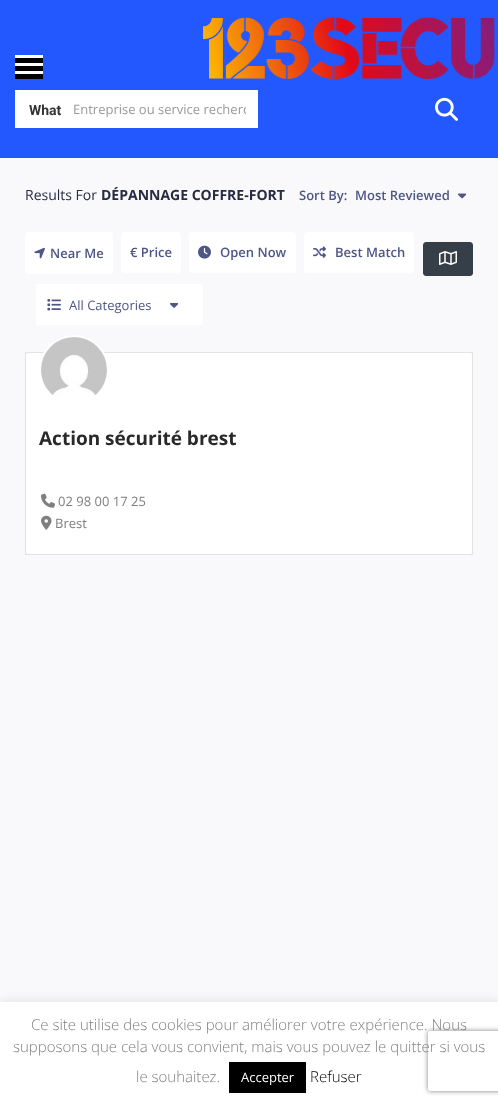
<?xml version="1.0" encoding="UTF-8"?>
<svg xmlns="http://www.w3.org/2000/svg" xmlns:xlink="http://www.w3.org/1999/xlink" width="498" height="1105">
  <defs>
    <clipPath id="clip1"><path d="M 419 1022 h 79 v 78 h -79 z m 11 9 h 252 c 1 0 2 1 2 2 v 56 c 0 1 -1 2 -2 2 h -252 c -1 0 -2 -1 -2 -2 v -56 c 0 -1 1 -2 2 -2 z" clip-rule="evenodd" /></clipPath>
    <clipPath id="clip2"><rect x="73" y="100" width="173" height="18" /></clipPath>
  </defs>
  <rect width="100%" height="100%" fill="#f9f9fb" />
  <rect width="498" height="158" fill="#2458ff" />
  <image x="203" y="17" width="292" height="62" xlink:href="image1.png" />
  <rect x="15" y="58" width="28" height="21" fill="#000000" />
  <rect x="15" y="55" width="28" height="3" fill="#ffffff" />
  <rect x="15" y="63" width="28" height="3" fill="#ffffff" />
  <rect x="15" y="71" width="28" height="3" fill="#ffffff" />
  <rect x="15" y="90" width="243" height="38" fill="#ffffff" />
  <image x="435" y="97" width="23" height="24" xlink:href="image2.png" />
  <image x="458" y="193" width="9" height="6" xlink:href="image3.png" />
  <rect x="25" y="232" width="88" height="42" rx="4" fill="#ffffff" />
  <image x="34" y="247" width="11" height="12" xlink:href="image4.png" />
  <rect x="121" y="232" width="60" height="41" rx="4" fill="#ffffff" />
  <rect x="189" y="232" width="107" height="41" rx="4" fill="#ffffff" />
  <image x="198" y="245" width="13" height="14" xlink:href="image5.png" />
  <rect x="304" y="232" width="110" height="41" rx="4" fill="#ffffff" />
  <image x="313" y="246" width="13" height="12" xlink:href="image6.png" />
  <rect x="36" y="284" width="167" height="41" rx="2" fill="#ffffff" />
  <image x="47" y="299" width="14" height="12" xlink:href="image7.png" />
  <image x="170" y="303" width="9" height="5" xlink:href="image8.png" />
  <rect x="423.5" y="242.5" width="49" height="33" rx="2.5" fill="#363f48" stroke="#363f48" />
  <image x="439" y="251" width="18" height="14" xlink:href="image9.png" />
  <rect x="25" y="352" width="448" height="203" rx="7" fill="#ffffff" />
  <rect x="25.5" y="352.5" width="447" height="202" fill="none" stroke="#e3e3e3" />
  <circle cx="74" cy="370" r="34" fill="none" stroke="#ffffff" stroke-width="2" />
  <image x="41" y="337" width="66" height="61" xlink:href="image10.png" />
  <image x="41" y="493" width="14" height="15" xlink:href="image11.png" />
  <image x="41" y="515" width="11" height="15" xlink:href="image12.png" />
  <rect y="1001" width="498" height="103" fill="#acabab" fill-opacity="0.3" filter="blur(5px)" />
  <rect y="1002" width="498" height="103" fill="#ffffff" />
  <rect x="229" y="1062" width="77" height="31" fill="#000000" />
  <g clip-path="url(#clip1)">
    <rect x="428" y="1031" width="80" height="60" rx="2" fill="#808080" filter="blur(2.5px)" />
  </g>
  <text x="29" y="115" style="font-family: Roboto; font-size: 14px; font-weight: bold; fill: #333333">What</text>
  <g clip-path="url(#clip2)">
    <text x="73" y="114" style="font-family: Open Sans; font-size: 13px; fill: #999999">Entreprise ou service recherc</text>
  </g>
  <text x="25" y="200" style="font-family: Open Sans; font-size: 14px; fill: #282b42">Results For</text>
  <text x="101" y="200" style="font-family: Open Sans; font-size: 14px; font-weight: bold; fill: #282b42">DÉPANNAGE COFFRE-FORT</text>
  <text x="299" y="200" style="font-family: Open Sans; font-size: 13px; font-weight: 600; fill: #4f5685">Sort By:</text>
  <text x="355" y="200" style="font-family: Open Sans; font-size: 13px; font-weight: 600; fill: #4f5685">Most Reviewed</text>
  <text x="50" y="258" style="font-family: Open Sans; font-size: 13px; font-weight: 600; fill: #4f5685">Near Me</text>
  <text x="130" y="257" style="font-family: Open Sans; font-size: 13px; font-weight: 600; fill: #4f5685">€ Price</text>
  <text x="220" y="257" style="font-family: Open Sans; font-size: 13px; font-weight: 600; fill: #4f5685">Open Now</text>
  <text x="335" y="257" style="font-family: Open Sans; font-size: 13px; font-weight: 600; fill: #4f5685">Best Match</text>
  <text x="69" y="310" style="font-family: Open Sans; font-size: 13px; fill: #4f5685">All Categories</text>
  <text x="39" y="445" style="font-family: Open Sans; font-size: 19px; font-weight: bold; fill: #292929">Action sécurité brest</text>
  <text x="58" y="506" style="font-family: Open Sans; font-size: 13px; fill: #7f7f7f">02 98 00 17 25</text>
  <text x="55" y="528" style="font-family: Open Sans; font-size: 13px; fill: #7f7f7f">Brest</text>
  <text x="31" y="1030" style="font-family: Open Sans; font-size: 15px; font-weight: 300; fill: #7f7f7f">Ce site utilise des cookies pour améliorer votre expérience. Nous</text>
  <text x="13" y="1052" style="font-family: Open Sans; font-size: 15px; font-weight: 300; fill: #7f7f7f">supposons que cela vous convient, mais vous pouvez le quitter si vous</text>
  <text x="136" y="1082" style="font-family: Open Sans; font-size: 15px; font-weight: 300; fill: #7f7f7f">le souhaitez.</text>
  <text x="241" y="1082" style="font-family: Open Sans; font-size: 13px; fill: #ffffff">Accepter</text>
  <text x="310" y="1082" style="font-family: Open Sans; font-size: 15px; font-weight: 300; fill: #000000">Refuser</text>
</svg>
